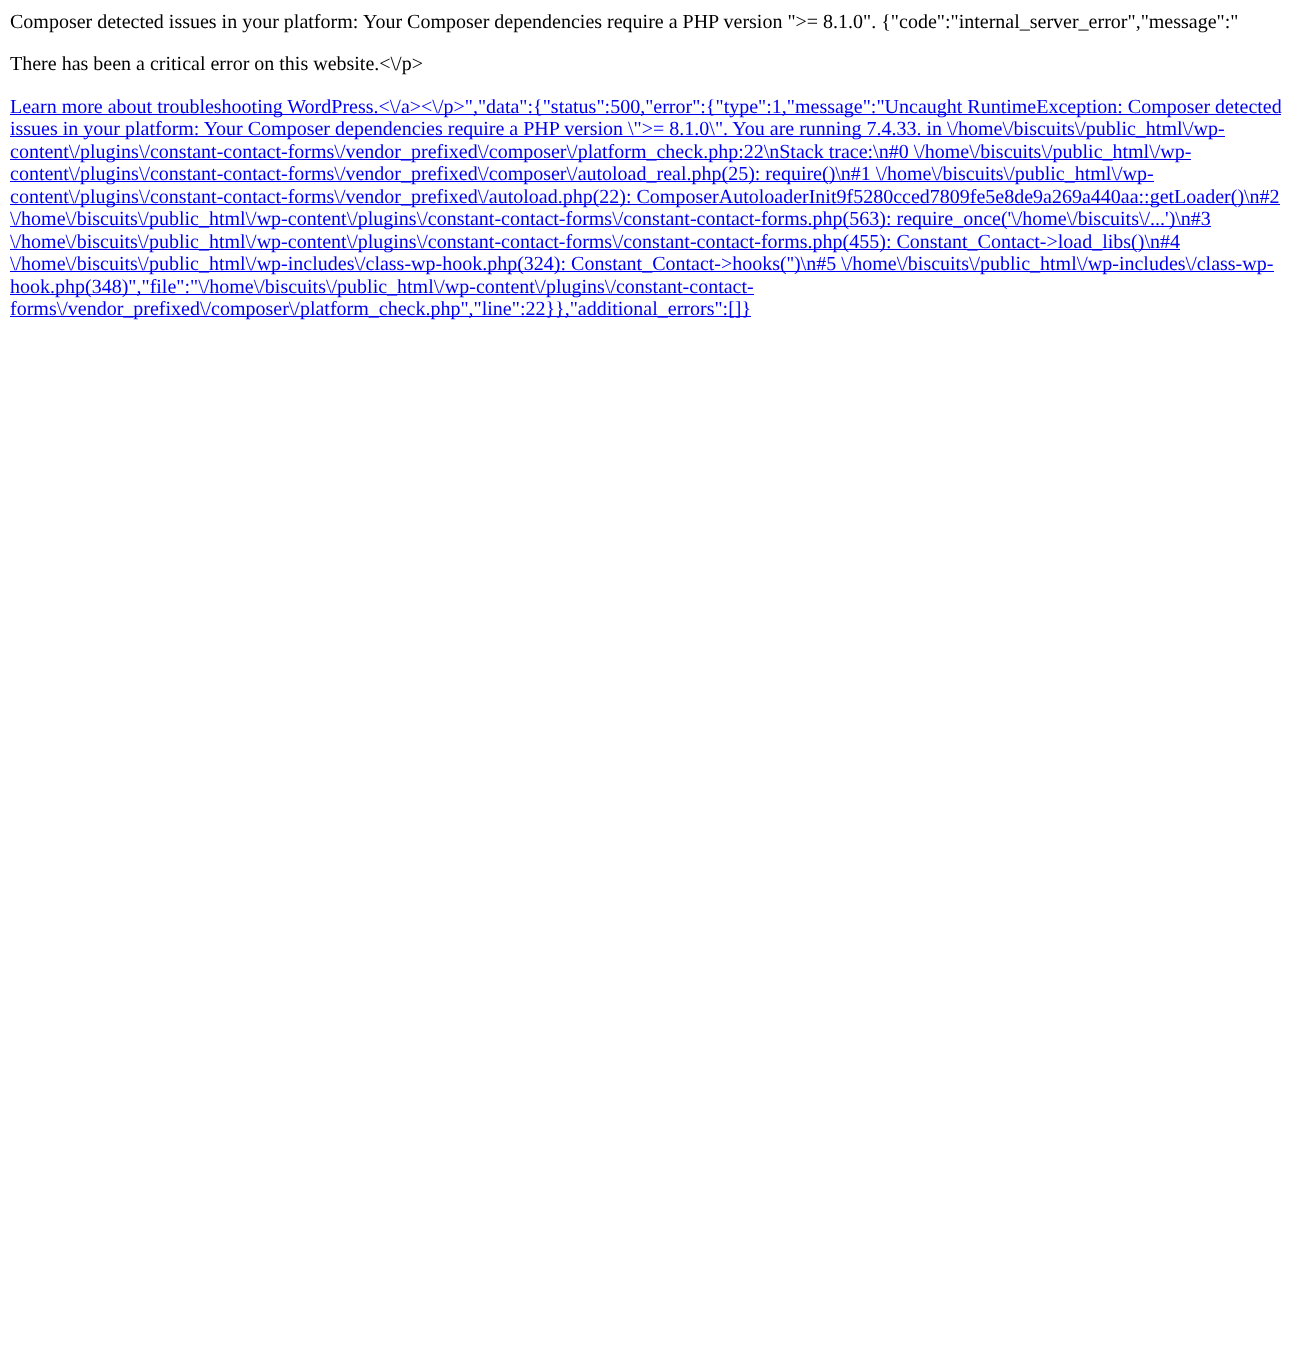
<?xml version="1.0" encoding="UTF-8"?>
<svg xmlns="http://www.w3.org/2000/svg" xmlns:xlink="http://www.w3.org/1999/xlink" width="1304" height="1350">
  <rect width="100%" height="100%" fill="#ffffff" />
  <rect x="10" y="114" width="1271" height="1" fill="#0000ee" />
  <rect x="10" y="136" width="1215" height="1" fill="#0000ee" />
  <rect x="10" y="159" width="1181" height="1" fill="#0000ee" />
  <rect x="10" y="181" width="1144" height="1" fill="#0000ee" />
  <rect x="10" y="204" width="1270" height="1" fill="#0000ee" />
  <rect x="10" y="226" width="1201" height="1" fill="#0000ee" />
  <rect x="10" y="249" width="1170" height="1" fill="#0000ee" />
  <rect x="10" y="271" width="1264" height="1" fill="#0000ee" />
  <rect x="10" y="294" width="744" height="1" fill="#0000ee" />
  <rect x="10" y="316" width="741" height="1" fill="#0000ee" />
  <text x="10" y="28" style="font-family: Liberation Serif; font-size: 20px; fill: #000000">Composer detected issues in your platform:</text>
  <text x="363" y="28" style="font-family: Liberation Serif; font-size: 20px; fill: #000000">Your Composer dependencies require a PHP version "&gt;= 8.1.0". {"code":"internal_server_error","message":"</text>
  <text x="10" y="70" style="font-family: Liberation Serif; font-size: 20px; fill: #000000">There has been a critical error on this website.&lt;\/p&gt;</text>
  <text x="10" y="113" style="font-family: Liberation Serif; font-size: 20px; fill: #0000ee">Learn more about troubleshooting WordPress.&lt;\/a&gt;&lt;\/p&gt;","data":{"status":500,"error":{"type":1,"message":"Uncaught RuntimeException: Composer detected</text>
  <text x="10" y="135" style="font-family: Liberation Serif; font-size: 20px; fill: #0000ee">issues in your platform: Your Composer dependencies require a PHP version \"&gt;= 8.1.0\". You are running 7.4.33. in \/home\/biscuits\/public_html\/wp-</text>
  <text x="10" y="158" style="font-family: Liberation Serif; font-size: 20px; fill: #0000ee">content\/plugins\/constant-contact-forms\/vendor_prefixed\/composer\/platform_check.php:22\nStack trace:\n#0 \/home\/biscuits\/public_html\/wp-</text>
  <text x="10" y="180" style="font-family: Liberation Serif; font-size: 20px; fill: #0000ee">content\/plugins\/constant-contact-forms\/vendor_prefixed\/composer\/autoload_real.php(25): require()\n#1 \/home\/biscuits\/public_html\/wp-</text>
  <text x="10" y="203" style="font-family: Liberation Serif; font-size: 20px; fill: #0000ee">content\/plugins\/constant-contact-forms\/vendor_prefixed\/autoload.php(22): ComposerAutoloaderInit9f5280cced7809fe5e8de9a269a440aa::getLoader()\n#2</text>
  <text x="10" y="225" style="font-family: Liberation Serif; font-size: 20px; fill: #0000ee">\/home\/biscuits\/public_html\/wp-content\/plugins\/constant-contact-forms\/constant-contact-forms.php(563): require_once('\/home\/biscuits\/...')\n#3</text>
  <text x="10" y="248" style="font-family: Liberation Serif; font-size: 20px; fill: #0000ee">\/home\/biscuits\/public_html\/wp-content\/plugins\/constant-contact-forms\/constant-contact-forms.php(455): Constant_Contact-&gt;load_libs()\n#4</text>
  <text x="10" y="270" style="font-family: Liberation Serif; font-size: 20px; fill: #0000ee">\/home\/biscuits\/public_html\/wp-includes\/class-wp-hook.php(324): Constant_Contact-&gt;hooks('')\n#5 \/home\/biscuits\/public_html\/wp-includes\/class-wp-</text>
  <text x="10" y="293" style="font-family: Liberation Serif; font-size: 20px; fill: #0000ee">hook.php(348)","file":"\/home\/biscuits\/public_html\/wp-content\/plugins\/constant-contact-</text>
  <text x="10" y="315" style="font-family: Liberation Serif; font-size: 20px; fill: #0000ee">forms\/vendor_prefixed\/composer\/platform_check.php","line":22}},"additional_errors":[]}</text>
</svg>
